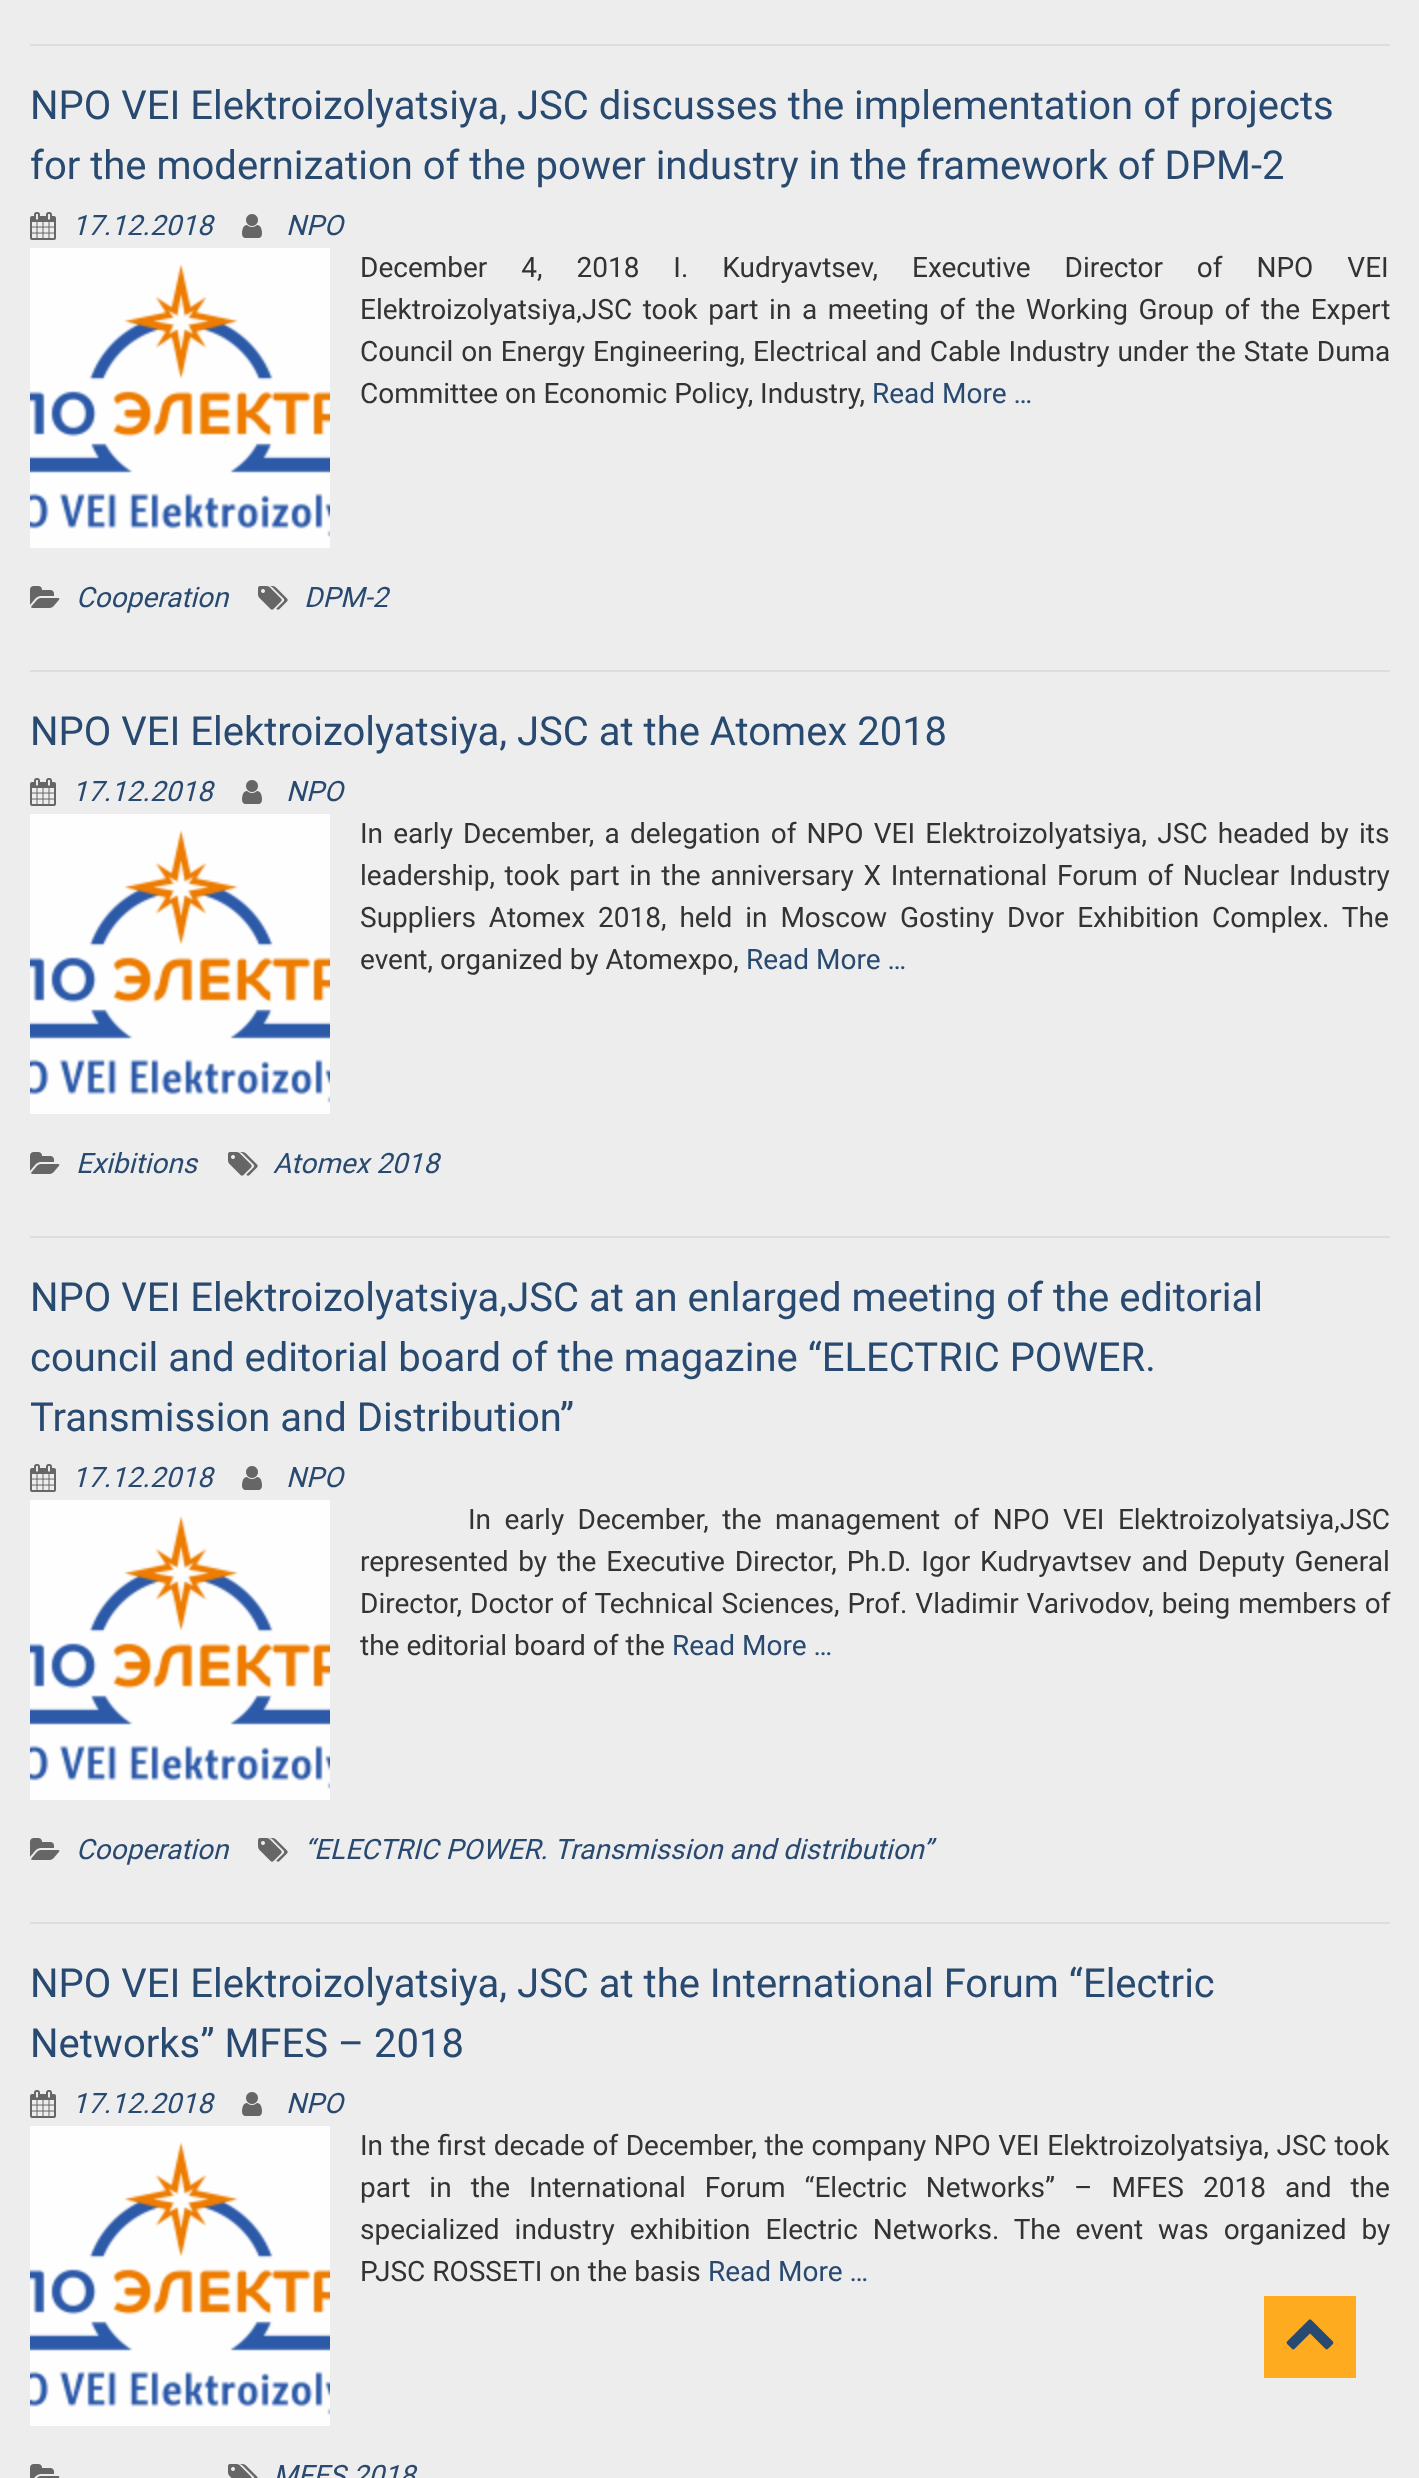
<?xml version="1.0" encoding="UTF-8"?>
<svg xmlns="http://www.w3.org/2000/svg" xmlns:xlink="http://www.w3.org/1999/xlink" width="1419" height="2478">
  <rect width="100%" height="100%" fill="#ededed" />
  <rect x="30" y="44" width="1360" height="2" fill="#dddddd" />
  <rect x="30" y="670" width="1360" height="2" fill="#dddddd" />
  <image x="30" y="212" width="26" height="28" xlink:href="image1.png" />
  <image x="242" y="214" width="20" height="24" xlink:href="image2.png" />
  <image x="30" y="248" width="300" height="300" xlink:href="image3.png" />
  <image x="30" y="586" width="30" height="22" xlink:href="image4.png" />
  <image x="258" y="586" width="30" height="24" xlink:href="image5.png" />
  <rect x="30" y="1236" width="1360" height="2" fill="#dddddd" />
  <image x="30" y="778" width="26" height="28" xlink:href="image1.png" />
  <image x="242" y="780" width="20" height="24" xlink:href="image2.png" />
  <image x="30" y="814" width="300" height="300" xlink:href="image3.png" />
  <image x="30" y="1152" width="30" height="22" xlink:href="image4.png" />
  <image x="228" y="1152" width="30" height="24" xlink:href="image5.png" />
  <rect x="30" y="1922" width="1360" height="2" fill="#dddddd" />
  <image x="30" y="1464" width="26" height="28" xlink:href="image1.png" />
  <image x="242" y="1466" width="20" height="24" xlink:href="image2.png" />
  <image x="30" y="1500" width="300" height="300" xlink:href="image3.png" />
  <image x="30" y="1838" width="30" height="22" xlink:href="image4.png" />
  <image x="258" y="1838" width="30" height="24" xlink:href="image5.png" />
  <image x="30" y="2090" width="26" height="28" xlink:href="image1.png" />
  <image x="242" y="2092" width="20" height="24" xlink:href="image2.png" />
  <image x="30" y="2126" width="300" height="300" xlink:href="image3.png" />
  <image x="30" y="2464" width="30" height="14" xlink:href="image6.png" />
  <image x="228" y="2464" width="30" height="14" xlink:href="image7.png" />
  <rect x="1264" y="2296" width="92" height="82" fill="#ffab1f" />
  <image x="1286" y="2319" width="48" height="31" xlink:href="image8.png" />
  <text x="30" y="119" style="font-family: Roboto; font-size: 40px; fill: #294a70">NPO VEI Elektroizolyatsiya, JSC discusses the implementation of projects</text>
  <text x="30" y="179" style="font-family: Roboto; font-size: 40px; fill: #294a70">for the modernization of the power industry in the framework of DPM-2</text>
  <text x="72" y="235" style="font-family: Roboto; font-size: 28px; font-style: italic; fill: #294a70">17.12.2018</text>
  <text x="286" y="235" style="font-family: Roboto; font-size: 28px; font-style: italic; fill: #294a70">NPO</text>
  <text x="360" y="277" word-spacing="27" style="font-family: Roboto; font-size: 28px; fill: #333333">December 4, 2018 I. Kudryavtsev, Executive Director of NPO VEI</text>
  <text x="360" y="319" word-spacing="3.6" style="font-family: Roboto; font-size: 28px; fill: #333333">Elektroizolyatsiya,JSC took part in a meeting of the Working Group of the Expert</text>
  <text x="360" y="361" word-spacing="1" style="font-family: Roboto; font-size: 28px; fill: #333333">Council on Energy Engineering, Electrical and Cable Industry under the State Duma</text>
  <text x="360" y="403" style="font-family: Roboto; font-size: 28px; fill: #333333">Committee on Economic Policy, Industry,</text>
  <text x="872" y="403" style="font-family: Roboto; font-size: 28px; fill: #294a70">Read More …</text>
  <text x="76" y="607" style="font-family: Roboto; font-size: 28px; font-style: italic; fill: #294a70">Cooperation</text>
  <text x="304" y="607" style="font-family: Roboto; font-size: 28px; font-style: italic; fill: #294a70">DPM-2</text>
  <text x="30" y="745" style="font-family: Roboto; font-size: 40px; fill: #294a70">NPO VEI Elektroizolyatsiya, JSC at the Atomex 2018</text>
  <text x="72" y="801" style="font-family: Roboto; font-size: 28px; font-style: italic; fill: #294a70">17.12.2018</text>
  <text x="286" y="801" style="font-family: Roboto; font-size: 28px; font-style: italic; fill: #294a70">NPO</text>
  <text x="360" y="843" word-spacing="3.25" style="font-family: Roboto; font-size: 28px; fill: #333333">In early December, a delegation of NPO VEI Elektroizolyatsiya, JSC headed by its</text>
  <text x="360" y="885" word-spacing="2.75" style="font-family: Roboto; font-size: 28px; fill: #333333">leadership, took part in the anniversary X International Forum of Nuclear Industry</text>
  <text x="360" y="927" word-spacing="6" style="font-family: Roboto; font-size: 28px; fill: #333333">Suppliers Atomex 2018, held in Moscow Gostiny Dvor Exhibition Complex. The</text>
  <text x="360" y="969" style="font-family: Roboto; font-size: 28px; fill: #333333">event, organized by Atomexpo,</text>
  <text x="746" y="969" style="font-family: Roboto; font-size: 28px; fill: #294a70">Read More …</text>
  <text x="76" y="1173" style="font-family: Roboto; font-size: 28px; font-style: italic; fill: #294a70">Exibitions</text>
  <text x="273" y="1173" style="font-family: Roboto; font-size: 28px; font-style: italic; fill: #294a70">Atomex 2018</text>
  <text x="30" y="1311" style="font-family: Roboto; font-size: 40px; fill: #294a70">NPO VEI Elektroizolyatsiya,JSC at an enlarged meeting of the editorial</text>
  <text x="30" y="1371" style="font-family: Roboto; font-size: 40px; fill: #294a70">council and editorial board of the magazine “ELECTRIC POWER.</text>
  <text x="30" y="1431" style="font-family: Roboto; font-size: 40px; fill: #294a70">Transmission and Distribution”</text>
  <text x="72" y="1487" style="font-family: Roboto; font-size: 28px; font-style: italic; fill: #294a70">17.12.2018</text>
  <text x="286" y="1487" style="font-family: Roboto; font-size: 28px; font-style: italic; fill: #294a70">NPO</text>
  <text x="468" y="1529" word-spacing="6.5" style="font-family: Roboto; font-size: 28px; fill: #333333">In early December, the management of NPO VEI Elektroizolyatsiya,JSC</text>
  <text x="360" y="1571" word-spacing="2.9" style="font-family: Roboto; font-size: 28px; fill: #333333">represented by the Executive Director, Ph.D. Igor Kudryavtsev and Deputy General</text>
  <text x="360" y="1613" word-spacing="1" style="font-family: Roboto; font-size: 28px; fill: #333333">Director, Doctor of Technical Sciences, Prof. Vladimir Varivodov, being members of</text>
  <text x="360" y="1655" style="font-family: Roboto; font-size: 28px; fill: #333333">the editorial board of the</text>
  <text x="672" y="1655" style="font-family: Roboto; font-size: 28px; fill: #294a70">Read More …</text>
  <text x="76" y="1859" style="font-family: Roboto; font-size: 28px; font-style: italic; fill: #294a70">Cooperation</text>
  <text x="304" y="1859" style="font-family: Roboto; font-size: 28px; font-style: italic; fill: #294a70">“ELECTRIC POWER. Transmission and distribution”</text>
  <text x="30" y="1997" style="font-family: Roboto; font-size: 40px; fill: #294a70">NPO VEI Elektroizolyatsiya, JSC at the International Forum “Electric</text>
  <text x="30" y="2057" style="font-family: Roboto; font-size: 40px; fill: #294a70">Networks” MFES – 2018</text>
  <text x="72" y="2113" style="font-family: Roboto; font-size: 28px; font-style: italic; fill: #294a70">17.12.2018</text>
  <text x="286" y="2113" style="font-family: Roboto; font-size: 28px; font-style: italic; fill: #294a70">NPO</text>
  <text x="360" y="2155" word-spacing="0.6" style="font-family: Roboto; font-size: 28px; fill: #333333">In the first decade of December, the company NPO VEI Elektroizolyatsiya, JSC took</text>
  <text x="360" y="2197" word-spacing="12.1" style="font-family: Roboto; font-size: 28px; fill: #333333">part in the International Forum “Electric Networks” – MFES 2018 and the</text>
  <text x="360" y="2239" word-spacing="8" style="font-family: Roboto; font-size: 28px; fill: #333333">specialized industry exhibition Electric Networks. The event was organized by</text>
  <text x="360" y="2281" style="font-family: Roboto; font-size: 28px; fill: #333333">PJSC ROSSETI on the basis</text>
  <text x="708" y="2281" style="font-family: Roboto; font-size: 28px; fill: #294a70">Read More …</text>
  <text x="273" y="2485" style="font-family: Roboto; font-size: 28px; font-style: italic; fill: #294a70">MFES 2018</text>
</svg>
